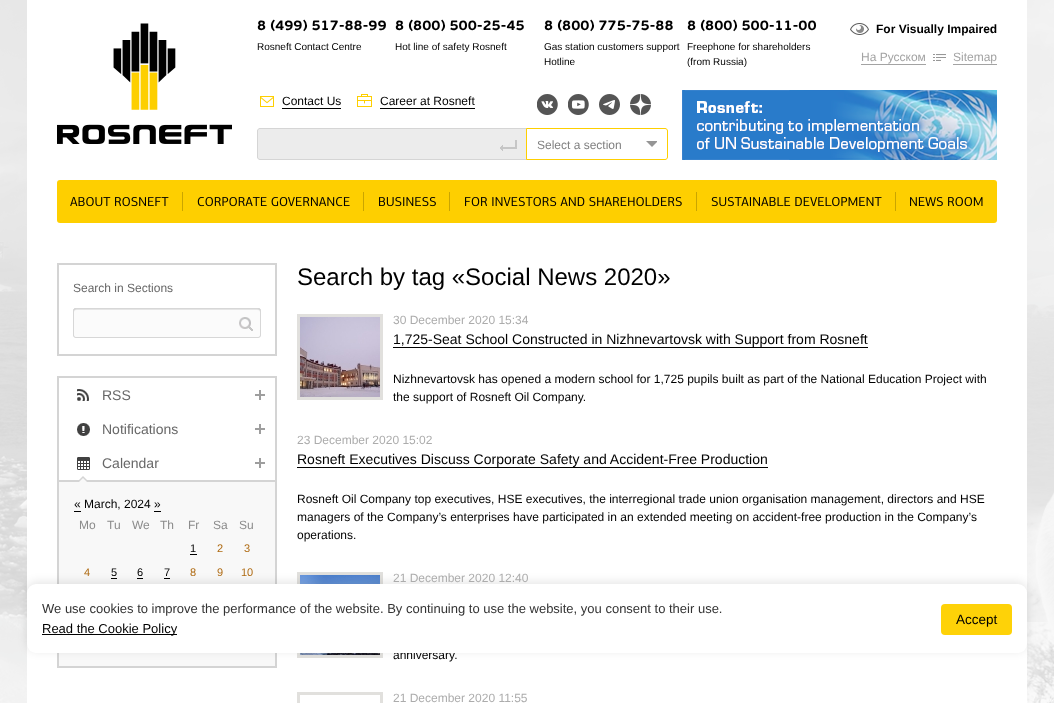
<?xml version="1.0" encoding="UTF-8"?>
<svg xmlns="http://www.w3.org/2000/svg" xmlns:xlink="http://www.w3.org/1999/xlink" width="1054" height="703">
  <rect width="100%" height="100%" fill="#ffffff" />
  <image x="0" y="0" width="1054" height="703" xlink:href="image1.png" />
  <rect x="27" width="1000" height="703" fill="#ffffff" />
  <image x="57" y="23" width="175" height="121" xlink:href="image2.png" />
  <image x="850" y="23" width="19" height="12" xlink:href="image3.png" />
  <rect x="861" y="64" width="65" height="1" fill="#a3a3a3" />
  <image x="933" y="54" width="13" height="7" xlink:href="image4.png" />
  <rect x="953" y="64" width="44" height="1" fill="#a3a3a3" />
  <image x="260" y="96" width="14" height="11" xlink:href="image5.png" />
  <rect x="282" y="108" width="59" height="1" fill="#000000" />
  <image x="357" y="94" width="15" height="13" xlink:href="image6.png" />
  <rect x="380" y="108" width="95" height="1" fill="#000000" />
  <image x="537" y="94" width="21" height="21" xlink:href="image7.png" />
  <image x="568" y="94" width="21" height="21" xlink:href="image8.png" />
  <image x="599" y="94" width="21" height="21" xlink:href="image9.png" />
  <image x="630" y="94" width="21" height="21" xlink:href="image10.png" />
  <image x="682" y="90" width="315" height="70" xlink:href="image11.png" />
  <path d="M 260 128.5 h 266.5 v 31 h -266.5 c -1.5 0 -2.5 -1 -2.5 -2.5 v -26 c 0 -1.5 1 -2.5 2.5 -2.5 z" fill="#ececec" stroke="#d5d5d5" />
  <image x="500" y="140" width="17" height="11" xlink:href="image12.png" />
  <path d="M 526.5 128.5 h 138.5 c 1.5 0 2.5 1 2.5 2.5 v 26 c 0 1.5 -1 2.5 -2.5 2.5 h -138.5 z" fill="#ffffff" stroke="#fecf00" />
  <image x="646" y="141" width="11" height="6" xlink:href="image13.png" />
  <rect x="57" y="180" width="940" height="43" rx="3" fill="#fecf00" />
  <image x="70" y="197" width="99" height="10" xlink:href="image14.png" />
  <rect x="182" y="192" width="1" height="19" fill="#caa500" />
  <image x="197" y="197" width="153" height="10" xlink:href="image15.png" />
  <rect x="363" y="192" width="1" height="19" fill="#caa500" />
  <image x="379" y="197" width="57" height="10" xlink:href="image16.png" />
  <rect x="449" y="192" width="1" height="19" fill="#caa500" />
  <image x="465" y="197" width="217" height="10" xlink:href="image17.png" />
  <rect x="696" y="192" width="1" height="19" fill="#caa500" />
  <image x="711" y="197" width="171" height="10" xlink:href="image18.png" />
  <rect x="895" y="192" width="1" height="19" fill="#caa500" />
  <image x="910" y="197" width="73" height="10" xlink:href="image19.png" />
  <rect x="58" y="264" width="218" height="91" fill="none" stroke="#d4d4d4" stroke-width="2" />
  <image x="73" y="308" width="188" height="30" xlink:href="image20.png" />
  <image x="239" y="317" width="14" height="14" xlink:href="image21.png" />
  <rect x="58" y="377" width="218" height="290" fill="none" stroke="#d4d4d4" stroke-width="2" />
  <image x="77" y="389" width="12" height="12" xlink:href="image22.png" />
  <image x="255" y="390" width="10" height="10" xlink:href="image23.png" />
  <image x="77" y="423" width="13" height="13" xlink:href="image24.png" />
  <image x="255" y="424" width="10" height="10" xlink:href="image23.png" />
  <image x="77" y="457" width="13" height="13" xlink:href="image25.png" />
  <image x="255" y="458" width="10" height="10" xlink:href="image23.png" />
  <rect x="58" y="481" width="218" height="186" fill="#f8f8f8" stroke="#d4d4d4" stroke-width="2" />
  <path d="M 89 482 h -12 l 6 -6 z" fill="#d4d4d4" />
  <path d="M 89 484 h -12 l 6 -6 z" fill="#f8f8f8" />
  <rect x="74" y="511" width="7" height="1" fill="#000000" />
  <rect x="154" y="511" width="7" height="1" fill="#000000" />
  <rect x="190" y="554" width="7" height="1" fill="#000000" />
  <rect x="111" y="578" width="6" height="1" fill="#000000" />
  <rect x="137" y="578" width="6" height="1" fill="#000000" />
  <rect x="164" y="578" width="6" height="1" fill="#000000" />
  <rect x="298.5" y="315.5" width="83" height="83" fill="none" stroke="#e1e0dd" stroke-width="3" />
  <image x="300" y="317" width="80" height="80" xlink:href="image26.png" />
  <rect x="393" y="347" width="475" height="1" fill="#000000" />
  <rect x="297" y="467" width="471" height="1" fill="#000000" />
  <rect x="298.5" y="573.5" width="83" height="83" fill="none" stroke="#e1e0dd" stroke-width="3" />
  <image x="300" y="575" width="80" height="80" xlink:href="image27.png" />
  <rect x="298.5" y="693.5" width="83" height="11" fill="none" stroke="#e1e0dd" stroke-width="3" />
  <rect x="27" y="582" width="1000" height="69" rx="9" fill="#000000" fill-opacity="0.1" filter="blur(5px)" />
  <text x="257" y="30" style="font-family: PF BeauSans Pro; font-size: 14px; font-weight: bold; fill: #000000">8 (499) 517-88-99</text>
  <text x="257" y="50" style="font-family: Liberation Sans; font-size: 10px; fill: #000000">Rosneft Contact Centre</text>
  <text x="395" y="30" style="font-family: PF BeauSans Pro; font-size: 14px; font-weight: bold; fill: #000000">8 (800) 500-25-45</text>
  <text x="395" y="50" style="font-family: Liberation Sans; font-size: 10px; fill: #000000">Hot line of safety Rosneft</text>
  <text x="544" y="30" style="font-family: PF BeauSans Pro; font-size: 14px; font-weight: bold; fill: #000000">8 (800) 775-75-88</text>
  <text x="544" y="50" style="font-family: Liberation Sans; font-size: 10px; fill: #000000">Gas station customers support</text>
  <text x="544" y="65" style="font-family: Liberation Sans; font-size: 10px; fill: #000000">Hotline</text>
  <text x="687" y="30" style="font-family: PF BeauSans Pro; font-size: 14px; font-weight: bold; fill: #000000">8 (800) 500-11-00</text>
  <text x="687" y="50" style="font-family: Liberation Sans; font-size: 10px; fill: #000000">Freephone for shareholders</text>
  <text x="687" y="65" style="font-family: Liberation Sans; font-size: 10px; fill: #000000">(from Russia)</text>
  <text x="876" y="33" style="font-family: Liberation Sans; font-size: 12px; font-weight: bold; fill: #000000">For Visually Impaired</text>
  <text x="861" y="61" style="font-family: Liberation Sans; font-size: 12px; fill: #a3a3a3">На Русском</text>
  <text x="953" y="61" style="font-family: Liberation Sans; font-size: 12px; fill: #a3a3a3">Sitemap</text>
  <text x="282" y="105" style="font-family: Liberation Sans; font-size: 12px; fill: #000000">Contact Us</text>
  <text x="380" y="105" style="font-family: Liberation Sans; font-size: 12px; fill: #000000">Career at Rosneft</text>
  <text x="537" y="149" style="font-family: Liberation Sans; font-size: 12px; fill: #808080">Select a section</text>
  <text x="73" y="292" style="font-family: Liberation Sans; font-size: 12px; fill: #676767">Search in Sections</text>
  <text x="102" y="400" style="font-family: Liberation Sans; font-size: 14px; fill: #676767">RSS</text>
  <text x="102" y="434" style="font-family: Liberation Sans; font-size: 14px; fill: #676767">Notifications</text>
  <text x="102" y="468" style="font-family: Liberation Sans; font-size: 14px; fill: #676767">Calendar</text>
  <text x="74" y="508" style="font-family: Liberation Sans; font-size: 12px; fill: #000000">« March, 2024 »</text>
  <text x="79" y="529" style="font-family: Liberation Sans; font-size: 12px; fill: #8b8b8b">Mo</text>
  <text x="107" y="529" style="font-family: Liberation Sans; font-size: 12px; fill: #8b8b8b">Tu</text>
  <text x="132" y="529" style="font-family: Liberation Sans; font-size: 12px; fill: #8b8b8b">We</text>
  <text x="160" y="529" style="font-family: Liberation Sans; font-size: 12px; fill: #8b8b8b">Th</text>
  <text x="188" y="529" style="font-family: Liberation Sans; font-size: 12px; fill: #8b8b8b">Fr</text>
  <text x="213" y="529" style="font-family: Liberation Sans; font-size: 12px; fill: #8b8b8b">Sa</text>
  <text x="239" y="529" style="font-family: Liberation Sans; font-size: 12px; fill: #8b8b8b">Su</text>
  <text x="190" y="552" style="font-family: Liberation Sans; font-size: 11px; fill: #000000">1</text>
  <text x="217" y="552" style="font-family: Liberation Sans; font-size: 11px; fill: #af6b13">2</text>
  <text x="244" y="552" style="font-family: Liberation Sans; font-size: 11px; fill: #af6b13">3</text>
  <text x="84" y="576" style="font-family: Liberation Sans; font-size: 11px; fill: #af6b13">4</text>
  <text x="111" y="576" style="font-family: Liberation Sans; font-size: 11px; fill: #000000">5</text>
  <text x="137" y="576" style="font-family: Liberation Sans; font-size: 11px; fill: #000000">6</text>
  <text x="164" y="576" style="font-family: Liberation Sans; font-size: 11px; fill: #000000">7</text>
  <text x="190" y="576" style="font-family: Liberation Sans; font-size: 11px; fill: #af6b13">8</text>
  <text x="217" y="576" style="font-family: Liberation Sans; font-size: 11px; fill: #af6b13">9</text>
  <text x="241" y="576" style="font-family: Liberation Sans; font-size: 11px; fill: #af6b13">10</text>
  <text x="297" y="285" style="font-family: Liberation Sans; font-size: 24px; fill: #000000">Search by tag «Social News 2020»</text>
  <text x="393" y="324" style="font-family: Liberation Sans; font-size: 12px; fill: #acacac">30 December 2020 15:34</text>
  <text x="393" y="344" style="font-family: Liberation Sans; font-size: 14px; fill: #000000">1,725-Seat School Constructed in Nizhnevartovsk with Support from Rosneft</text>
  <text x="393" y="383" style="font-family: Liberation Sans; font-size: 12px; fill: #000000">Nizhnevartovsk has opened a modern school for 1,725 pupils built as part of the National Education Project with</text>
  <text x="393" y="401" style="font-family: Liberation Sans; font-size: 12px; fill: #000000">the support of Rosneft Oil Company.</text>
  <text x="297" y="444" style="font-family: Liberation Sans; font-size: 12px; fill: #acacac">23 December 2020 15:02</text>
  <text x="297" y="464" style="font-family: Liberation Sans; font-size: 14px; fill: #000000">Rosneft Executives Discuss Corporate Safety and Accident-Free Production</text>
  <text x="297" y="503" style="font-family: Liberation Sans; font-size: 12px; fill: #000000">Rosneft Oil Company top executives, HSE executives, the interregional trade union organisation management, directors and HSE</text>
  <text x="297" y="521" style="font-family: Liberation Sans; font-size: 12px; fill: #000000">managers of the Company’s enterprises have participated in an extended meeting on accident-free production in the Company’s</text>
  <text x="297" y="539" style="font-family: Liberation Sans; font-size: 12px; fill: #000000">operations.</text>
  <text x="393" y="582" style="font-family: Liberation Sans; font-size: 12px; fill: #acacac">21 December 2020 12:40</text>
  <text x="393" y="659" style="font-family: Liberation Sans; font-size: 12px; fill: #000000">anniversary.</text>
  <text x="393" y="702" style="font-family: Liberation Sans; font-size: 12px; fill: #acacac">21 December 2020 11:55</text>
  <rect x="27" y="584" width="1000" height="69" rx="9" fill="#ffffff" />
  <text x="42" y="613" style="font-family: Liberation Sans; font-size: 13px; fill: #333333">We use cookies to improve the performance of the website. By continuing to use the website, you consent to their use.</text>
  <rect x="42" y="634" width="135" height="1" fill="#000000" />
  <text x="42" y="633" style="font-family: Liberation Sans; font-size: 13px; fill: #000000">Read the Cookie Policy</text>
  <rect x="941" y="604" width="71" height="31" rx="4" fill="#fed208" />
  <text x="956" y="624" style="font-family: Liberation Sans; font-size: 13.5px; fill: #000000">Accept</text>
</svg>
